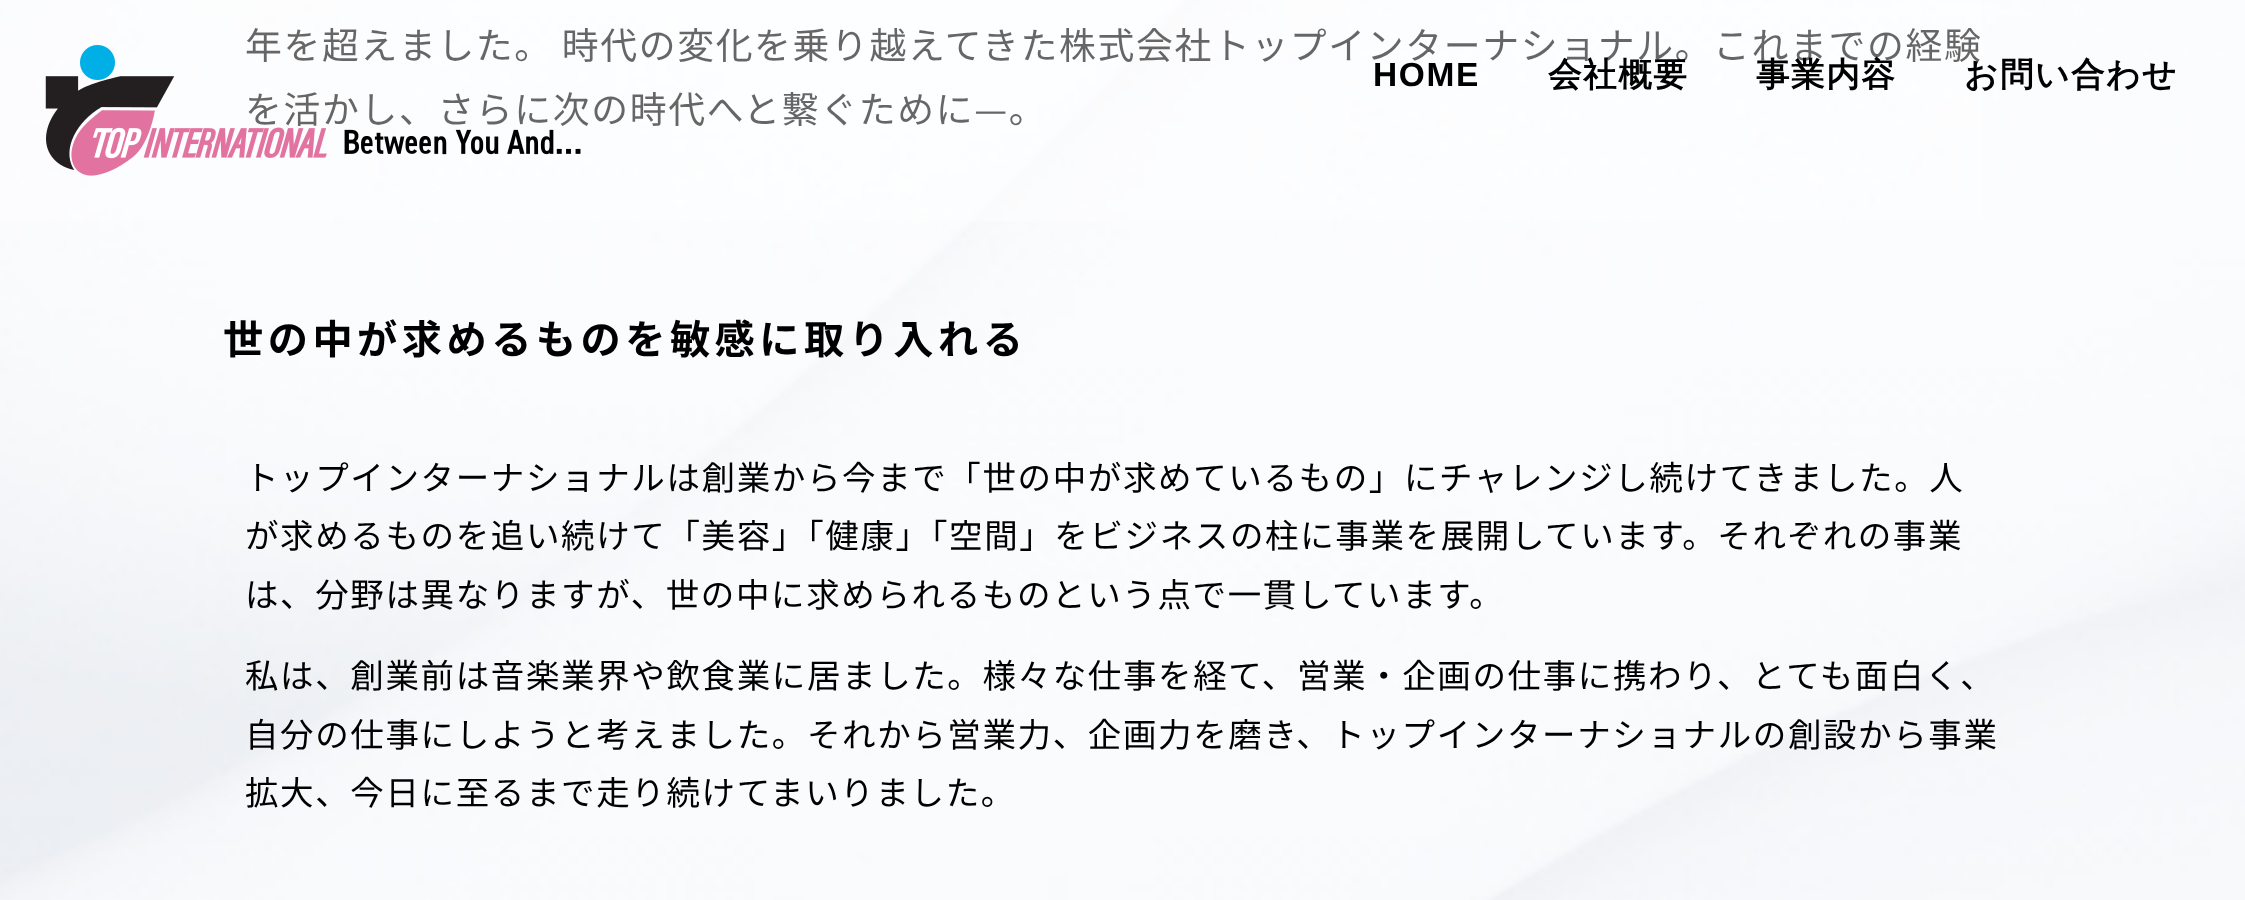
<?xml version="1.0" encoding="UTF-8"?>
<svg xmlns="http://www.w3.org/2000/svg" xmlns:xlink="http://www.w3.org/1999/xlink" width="2245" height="900">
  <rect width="100%" height="100%" fill="#ffffff" />
  <image x="0" y="0" width="2245" height="900" xlink:href="image1.png" />
  <text x="245" y="59" word-spacing="-1" style="font-family: Noto Sans JP; font-size: 36.85px; letter-spacing: 1.65px; fill: #000000">年を超えました。 時代の変化を乗り越えてきた株式会社トップインターナショナル。これまでの経験</text>
  <text x="245" y="123" style="font-family: Noto Sans JP; font-size: 36.85px; letter-spacing: 1.65px; fill: #000000">を活かし、さらに次の時代へと繋ぐために—。</text>
  <text x="223" y="354" style="font-family: Noto Sans JP; font-size: 40.2px; font-weight: bold; letter-spacing: 4.5px; fill: #000000">世の中が求めるものを敏感に取り入れる</text>
  <text x="245" y="490" style="font-family: Noto Sans JP; font-size: 33.48px; letter-spacing: 1.65px; fill: #000000">トップインターナショナルは創業から今まで「世の中が求めているもの」にチャレンジし続けてきました。人</text>
  <text x="245" y="548" style="font-family: Noto Sans JP; font-size: 33.48px; letter-spacing: 1.65px; fill: #000000">が求めるものを追い続けて「美容」「健康」「空間」をビジネスの柱に事業を展開しています。それぞれの事業</text>
  <text x="245" y="607" style="font-family: Noto Sans JP; font-size: 33.48px; letter-spacing: 1.65px; fill: #000000">は、分野は異なりますが、世の中に求められるものという点で一貫しています。</text>
  <text x="245" y="688" style="font-family: Noto Sans JP; font-size: 33.48px; letter-spacing: 1.65px; fill: #000000">私は、創業前は音楽業界や飲食業に居ました。様々な仕事を経て、営業・企画の仕事に携わり、とても面白く、</text>
  <text x="245" y="747" style="font-family: Noto Sans JP; font-size: 33.48px; letter-spacing: 1.65px; fill: #000000">自分の仕事にしようと考えました。それから営業力、企画力を磨き、トップインターナショナルの創設から事業</text>
  <text x="245" y="805" style="font-family: Noto Sans JP; font-size: 33.48px; letter-spacing: 1.65px; fill: #000000">拡大、今日に至るまで走り続けてまいりました。</text>
  <rect width="1982" height="221" fill="#ffffff" fill-opacity="0.4" />
  <image x="45" y="45" width="536" height="131" xlink:href="image2.png" />
  <text x="1373" y="86" style="font-family: Liberation Sans; font-size: 33.48px; font-weight: bold; letter-spacing: 1.65px; fill: #000000">HOME</text>
  <text x="1548" y="86" style="font-family: WenQuanYi Zen Hei; font-size: 33.48px; font-weight: bold; letter-spacing: 1.65px; fill: #000000">会社概要</text>
  <text x="1756" y="86" style="font-family: WenQuanYi Zen Hei; font-size: 33.48px; font-weight: bold; letter-spacing: 1.65px; fill: #000000">事業内容</text>
  <text x="1964" y="86" style="font-family: WenQuanYi Zen Hei; font-size: 33.48px; font-weight: bold; letter-spacing: 1.65px; fill: #000000">お問い合わせ</text>
</svg>
